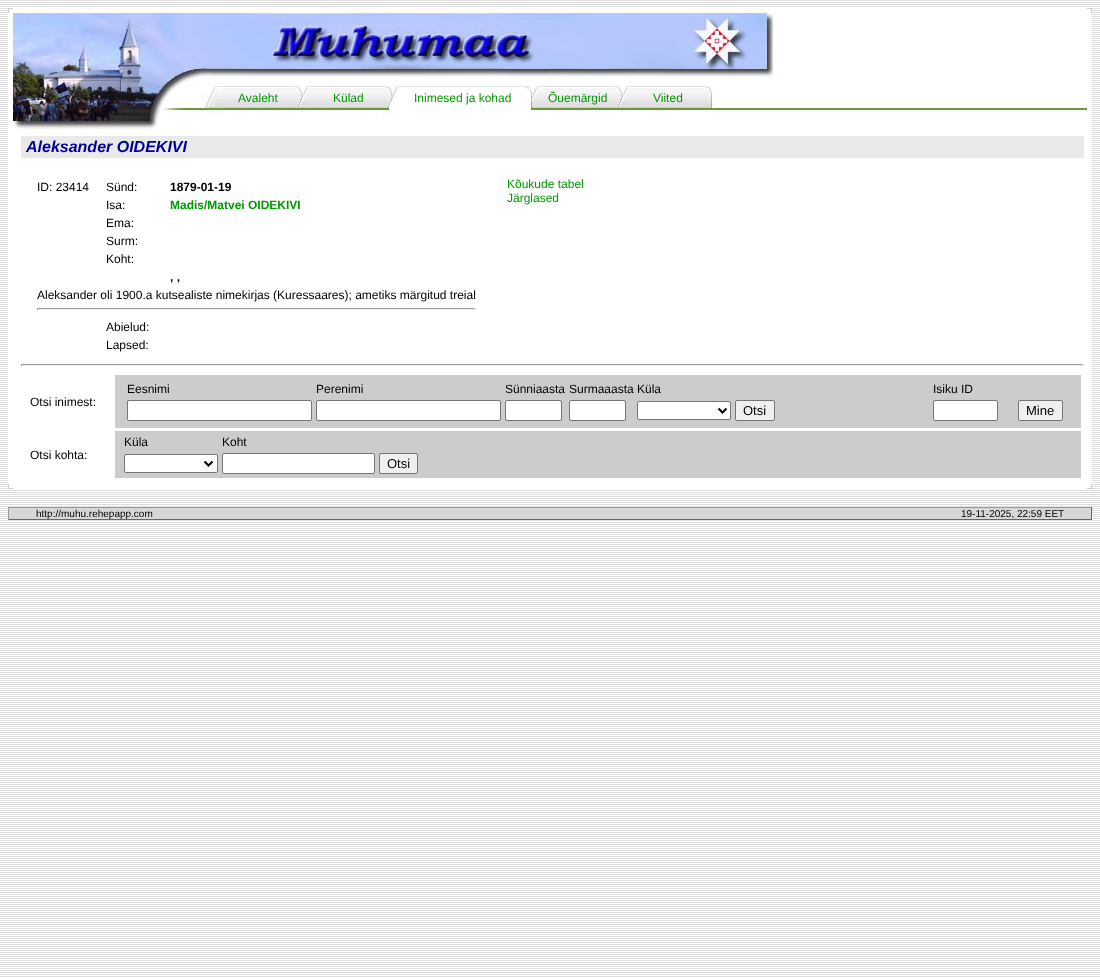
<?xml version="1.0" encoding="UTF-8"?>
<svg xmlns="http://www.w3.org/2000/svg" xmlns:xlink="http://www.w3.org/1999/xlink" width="1100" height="977">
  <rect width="100%" height="100%" fill="#ffffff" />
  <image x="0" y="0" width="1100" height="977" xlink:href="image1.png" />
  <image x="8" y="8" width="5" height="5" xlink:href="image2.png" />
  <rect x="13" y="8" width="1074" height="5" fill="#ffffff" />
  <image x="1087" y="8" width="5" height="5" xlink:href="image3.png" />
  <rect x="8" y="13" width="5" height="471" fill="#ffffff" />
  <rect x="13" y="14" width="1074" height="469" fill="#ffffff" />
  <image x="13" y="13" width="170" height="116" xlink:href="image4.png" />
  <image x="183" y="13" width="590" height="70" xlink:href="image5.png" />
  <image x="203" y="83" width="20" height="32" xlink:href="image6.png" />
  <image x="223" y="86" width="70" height="28" xlink:href="image7.png" />
  <image x="293" y="84" width="20" height="30" xlink:href="image8.png" />
  <image x="313" y="86" width="70" height="28" xlink:href="image7.png" />
  <image x="383" y="83" width="20" height="32" xlink:href="image9.png" />
  <rect x="403" y="86" width="120" height="1" fill="#e4e4e4" />
  <image x="523" y="83" width="20" height="31" xlink:href="image10.png" />
  <image x="543" y="86" width="70" height="28" xlink:href="image7.png" />
  <image x="613" y="84" width="20" height="30" xlink:href="image8.png" />
  <image x="633" y="86" width="70" height="28" xlink:href="image7.png" />
  <image x="703" y="85" width="20" height="30" xlink:href="image11.png" />
  <image x="183" y="108" width="20" height="4" xlink:href="image12.png" />
  <image x="723" y="108" width="284" height="4" xlink:href="image13.png" />
  <image x="1007" y="108" width="80" height="4" xlink:href="image14.png" />
  <rect x="21" y="136" width="1063" height="22" fill="#e9e9e9" />
  <rect x="37" y="308" width="439" height="1" fill="#9f9f9f" />
  <rect x="475" y="308" width="1" height="2" fill="#eeeeee" />
  <rect x="37" y="309" width="439" height="1" fill="#eeeeee" />
  <rect x="37" y="308" width="1" height="2" fill="#9f9f9f" />
  <rect x="21" y="364" width="1063" height="1" fill="#9f9f9f" />
  <rect x="1083" y="364" width="1" height="2" fill="#eeeeee" />
  <rect x="21" y="365" width="1063" height="1" fill="#eeeeee" />
  <rect x="21" y="364" width="1" height="2" fill="#9f9f9f" />
  <rect x="115" y="375" width="966" height="53" fill="#cccccc" />
  <rect x="127.5" y="400.5" width="184" height="20" rx="1.5" fill="#ffffff" stroke="#767676" />
  <rect x="316.5" y="400.5" width="184" height="20" rx="1.5" fill="#ffffff" stroke="#767676" />
  <rect x="505.5" y="400.5" width="56" height="20" rx="1.5" fill="#ffffff" stroke="#767676" />
  <rect x="569.5" y="400.5" width="56" height="20" rx="1.5" fill="#ffffff" stroke="#767676" />
  <rect x="637.5" y="401.5" width="93" height="18" rx="1.5" fill="#ffffff" stroke="#767676" />
  <path d="M 718.5 408.5 l 4 4 l 4 -4" fill="none" stroke="#000000" stroke-width="2" />
  <rect x="735.5" y="400.5" width="39" height="20" rx="1.5" fill="#efefef" stroke="#767676" />
  <rect x="933.5" y="400.5" width="64" height="20" rx="1.5" fill="#ffffff" stroke="#767676" />
  <rect x="1018.5" y="400.5" width="44" height="20" rx="1.5" fill="#efefef" stroke="#767676" />
  <rect x="115" y="431" width="966" height="47" fill="#cccccc" />
  <rect x="124.5" y="454.5" width="93" height="18" rx="1.5" fill="#ffffff" stroke="#767676" />
  <path d="M 204.5 461.5 l 4 4 l 4 -4" fill="none" stroke="#000000" stroke-width="2" />
  <rect x="222.5" y="453.5" width="152" height="20" rx="1.5" fill="#ffffff" stroke="#767676" />
  <rect x="379.5" y="453.5" width="38" height="20" rx="1.5" fill="#efefef" stroke="#767676" />
  <rect x="1087" y="13" width="5" height="471" fill="#ffffff" />
  <image x="8" y="484" width="5" height="5" xlink:href="image15.png" />
  <rect x="13" y="484" width="1074" height="5" fill="#ffffff" />
  <image x="1087" y="484" width="5" height="5" xlink:href="image16.png" />
  <rect x="9" y="508" width="1082" height="11" fill="#d7d7d7" />
  <rect x="8" y="507" width="1084" height="1" fill="#999999" />
  <rect x="1091" y="507" width="1" height="13" fill="#666666" />
  <rect x="8" y="519" width="1084" height="1" fill="#666666" />
  <rect x="8" y="507" width="1" height="13" fill="#999999" />
  <text x="238" y="102" style="font-family: Liberation Sans; font-size: 12px; fill: #009900">Avaleht</text>
  <text x="333" y="102" style="font-family: Liberation Sans; font-size: 12px; fill: #009900">Külad</text>
  <text x="414" y="102" style="font-family: Liberation Sans; font-size: 12px; fill: #009900">Inimesed ja kohad</text>
  <text x="548" y="102" style="font-family: Liberation Sans; font-size: 12px; fill: #009900">Õuemärgid</text>
  <text x="653" y="102" style="font-family: Liberation Sans; font-size: 12px; fill: #009900">Viited</text>
  <text x="26" y="152" style="font-family: Liberation Sans; font-size: 16px; font-weight: bold; font-style: italic; fill: #000099">Aleksander OIDEKIVI</text>
  <text x="37" y="191" style="font-family: Liberation Sans; font-size: 12px; fill: #000000">ID: 23414</text>
  <text x="106" y="191" style="font-family: Liberation Sans; font-size: 12px; fill: #000000">Sünd:</text>
  <text x="170" y="191" style="font-family: Liberation Sans; font-size: 12px; font-weight: bold; fill: #000000">1879-01-19</text>
  <text x="106" y="209" style="font-family: Liberation Sans; font-size: 12px; fill: #000000">Isa:</text>
  <text x="170" y="209" style="font-family: Liberation Sans; font-size: 12px; font-weight: bold; fill: #009900">Madis/Matvei OIDEKIVI</text>
  <text x="106" y="227" style="font-family: Liberation Sans; font-size: 12px; fill: #000000">Ema:</text>
  <text x="106" y="245" style="font-family: Liberation Sans; font-size: 12px; fill: #000000">Surm:</text>
  <text x="106" y="263" style="font-family: Liberation Sans; font-size: 12px; fill: #000000">Koht:</text>
  <text x="170" y="281" style="font-family: Liberation Sans; font-size: 12px; font-weight: bold; fill: #000000">, ,</text>
  <text x="37" y="299" style="font-family: Liberation Sans; font-size: 12px; fill: #000000">Aleksander oli 1900.a kutsealiste nimekirjas (Kuressaares); ametiks märgitud treial</text>
  <text x="106" y="331" style="font-family: Liberation Sans; font-size: 12px; fill: #000000">Abielud:</text>
  <text x="106" y="349" style="font-family: Liberation Sans; font-size: 12px; fill: #000000">Lapsed:</text>
  <text x="507" y="188" style="font-family: Liberation Sans; font-size: 12px; fill: #009900">Kõukude tabel</text>
  <text x="507" y="202" style="font-family: Liberation Sans; font-size: 12px; fill: #009900">Järglased</text>
  <text x="30" y="406" style="font-family: Liberation Sans; font-size: 12px; fill: #000000">Otsi inimest:</text>
  <text x="127" y="393" style="font-family: Liberation Sans; font-size: 12px; fill: #000000">Eesnimi</text>
  <text x="316" y="393" style="font-family: Liberation Sans; font-size: 12px; fill: #000000">Perenimi</text>
  <text x="505" y="393" style="font-family: Liberation Sans; font-size: 12px; fill: #000000">Sünniaasta</text>
  <text x="569" y="393" style="font-family: Liberation Sans; font-size: 12px; fill: #000000">Surmaaasta</text>
  <text x="637" y="393" style="font-family: Liberation Sans; font-size: 12px; fill: #000000">Küla</text>
  <text x="743" y="415" style="font-family: Liberation Sans; font-size: 13px; fill: #000000">Otsi</text>
  <text x="933" y="393" style="font-family: Liberation Sans; font-size: 12px; fill: #000000">Isiku ID</text>
  <text x="1026" y="415" style="font-family: Liberation Sans; font-size: 13px; fill: #000000">Mine</text>
  <text x="30" y="459" style="font-family: Liberation Sans; font-size: 12px; fill: #000000">Otsi kohta:</text>
  <text x="124" y="446" style="font-family: Liberation Sans; font-size: 12px; fill: #000000">Küla</text>
  <text x="222" y="446" style="font-family: Liberation Sans; font-size: 12px; fill: #000000">Koht</text>
  <text x="387" y="468" style="font-family: Liberation Sans; font-size: 13px; fill: #000000">Otsi</text>
  <text x="36" y="517" style="font-family: Liberation Sans; font-size: 10px; fill: #000000">http://muhu.rehepapp.com</text>
  <text x="961" y="517" style="font-family: Liberation Sans; font-size: 10px; fill: #000000">19-11-2025, 22:59 EET</text>
</svg>
